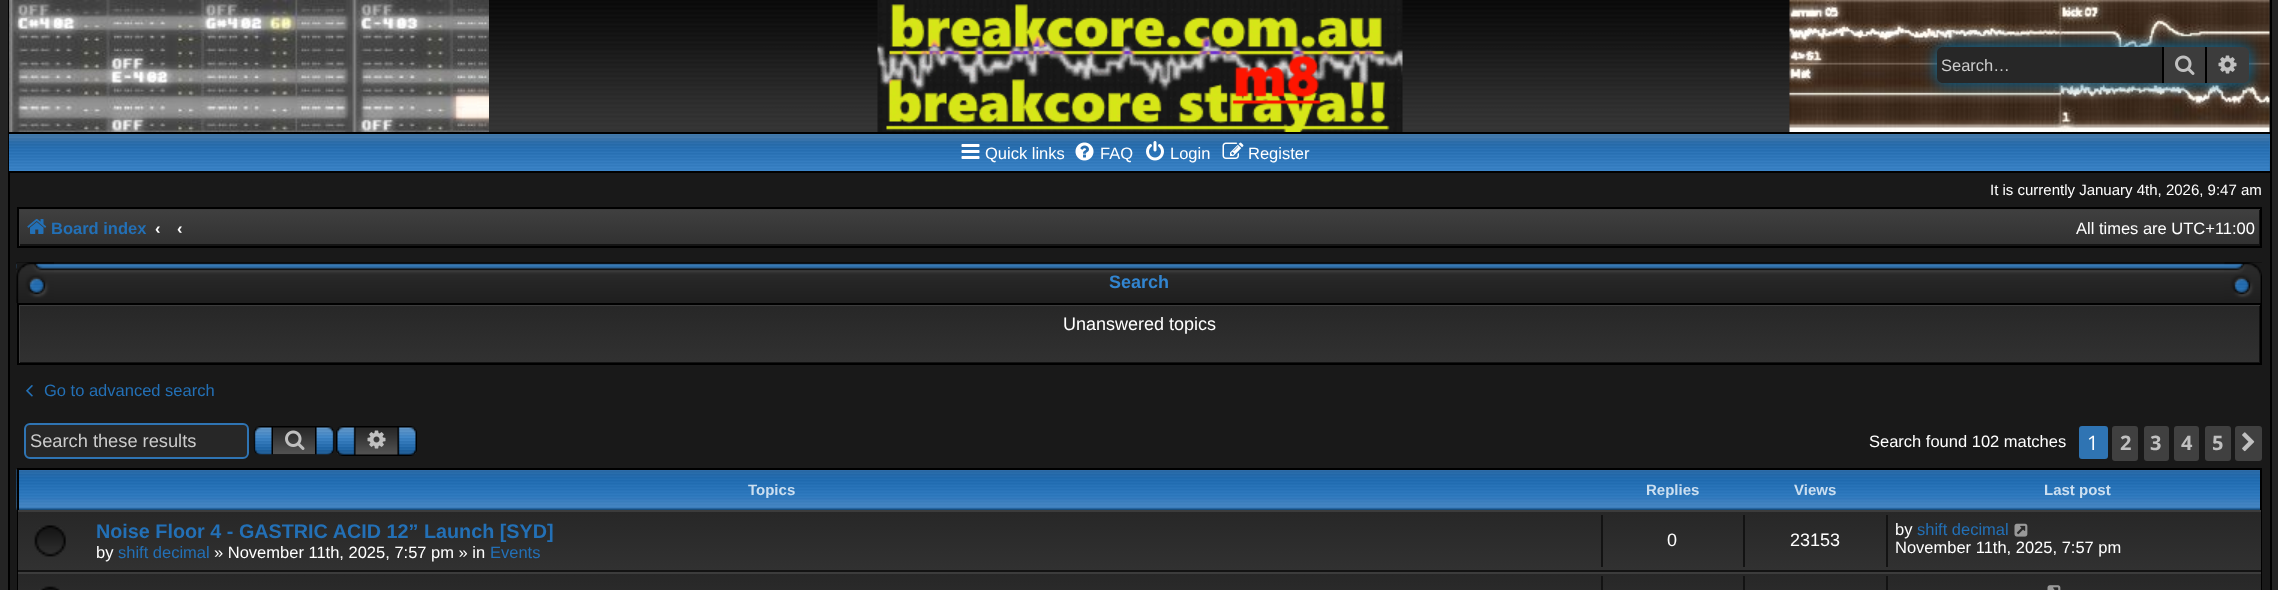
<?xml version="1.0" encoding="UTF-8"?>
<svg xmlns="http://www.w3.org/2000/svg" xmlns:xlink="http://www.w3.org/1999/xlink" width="2278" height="590">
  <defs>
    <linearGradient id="g1" gradientUnits="userSpaceOnUse" x1="1139" y1="208" x2="1139" y2="246"><stop offset="0" stop-color="#404040" /><stop offset="1" stop-color="#313131" /></linearGradient>
    <clipPath id="clip1"><rect x="18" y="209" width="2243" height="37" /></clipPath>
    <linearGradient id="g2" gradientUnits="userSpaceOnUse" x1="1139" y1="304" x2="1139" y2="363"><stop offset="0" stop-color="#272727" /><stop offset="1" stop-color="#313131" /></linearGradient>
    <clipPath id="clip2"><rect x="18" y="305" width="2243" height="58" /></clipPath>
    <linearGradient id="g3" gradientUnits="userSpaceOnUse" x1="1139" y1="511" x2="1139" y2="570"><stop offset="0" stop-color="#272727" /><stop offset="1" stop-color="#313131" /></linearGradient>
    <linearGradient id="g4" gradientUnits="userSpaceOnUse" x1="1139" y1="573" x2="1139" y2="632"><stop offset="0" stop-color="#272727" /><stop offset="1" stop-color="#313131" /></linearGradient>
  </defs>
  <rect width="100%" height="100%" fill="#242424" />
  <rect x="10" width="2260" height="590" fill="#191919" />
  <rect x="2270" width="2" height="590" fill="#000000" />
  <rect x="8" width="2" height="590" fill="#000000" />
  <image x="9" y="0" width="2261" height="132" xlink:href="image1.png" />
  <image x="877" y="0" width="526" height="132" xlink:href="image2.png" />
  <rect x="1937" y="47" width="312" height="36" rx="6" fill="#0075b0" filter="blur(7.5px)" />
  <path d="M 1943 47 h 219 v 36 h -219 c -3.5 0 -6 -2.5 -6 -6 v -24 c 0 -3.5 2.5 -6 6 -6 z" fill="#272727" />
  <rect x="2164" y="47" width="41" height="36" fill="#3c3c3c" />
  <rect x="2205" y="47" width="2" height="36" fill="#000000" />
  <rect x="2162" y="47" width="2" height="36" fill="#000000" />
  <image x="2175" y="55" width="20" height="20" xlink:href="image3.png" />
  <path d="M 2207 47 h 36 c 3.5 0 6 2.5 6 6 v 24 c 0 3.5 -2.5 6 -6 6 h -36 z" fill="#3c3c3c" />
  <image x="2218" y="55" width="19" height="19" xlink:href="image4.png" />
  <rect x="2269" y="134" width="1" height="37" fill="#2f74b3" />
  <image x="9" y="134" width="2261" height="37" xlink:href="image5.png" />
  <rect x="9" y="132" width="2261" height="2" fill="#000000" />
  <rect x="9" y="171" width="2261" height="2" fill="#000000" />
  <image x="961" y="144" width="19" height="15" xlink:href="image6.png" />
  <image x="1075" y="142" width="19" height="19" xlink:href="image7.png" />
  <image x="1146" y="141" width="18" height="20" xlink:href="image8.png" />
  <image x="1222" y="142" width="22" height="17" xlink:href="image9.png" />
  <rect x="20" y="210" width="2239" height="34" fill="url(#g1)" />
  <g clip-path="url(#clip1)">
    <path d="M -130 60 h 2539 v 334 h -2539 z m 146 147 h 2243 v 37 h -2243 z" fill="#131313" fill-rule="evenodd" />
    <path d="M -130 60 h 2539 v 334 h -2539 z m 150 150 h 2242 v 38 h -2242 z" fill="#3c3c3c" fill-rule="evenodd" />
  </g>
  <rect x="18" y="208" width="2243" height="39" fill="none" stroke="#000000" stroke-width="2" />
  <image x="27" y="219" width="20" height="15" xlink:href="image10.png" />
  <image x="16" y="262" width="2246" height="41" xlink:href="image11.png" />
  <rect x="20" y="306" width="2239" height="56" fill="url(#g2)" />
  <g clip-path="url(#clip2)">
    <path d="M -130 156 h 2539 v 356 h -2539 z m 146 147 h 2243 v 59 h -2243 z" fill="#131313" fill-rule="evenodd" />
    <path d="M -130 156 h 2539 v 356 h -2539 z m 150 150 h 2242 v 58 h -2242 z" fill="#3c3c3c" fill-rule="evenodd" />
  </g>
  <rect x="18" y="304" width="2243" height="60" fill="none" stroke="#000000" stroke-width="2" />
  <image x="26" y="385" width="7" height="12" xlink:href="image12.png" />
  <rect x="25" y="424" width="223" height="34" rx="5" fill="#272727" stroke="#2f74b3" stroke-width="2" />
  <image x="253" y="426" width="82" height="29" xlink:href="image13.png" />
  <image x="285" y="430" width="20" height="20" xlink:href="image14.png" />
  <image x="336" y="426" width="81" height="30" xlink:href="image15.png" />
  <image x="367" y="430" width="19" height="19" xlink:href="image16.png" />
  <rect x="2080" y="427" width="27" height="31" rx="2" fill="#2f74b3" stroke="#2f74b3" stroke-width="2" />
  <rect x="2112" y="426" width="26" height="35" rx="3" fill="#404040" />
  <rect x="2144" y="426" width="25" height="35" rx="3" fill="#404040" />
  <rect x="2174" y="426" width="25" height="35" rx="3" fill="#404040" />
  <rect x="2205" y="426" width="26" height="35" rx="3" fill="#404040" />
  <rect x="2235" y="426" width="27" height="35" rx="3" fill="#404040" />
  <image x="2242" y="432" width="13" height="20" xlink:href="image17.png" />
  <image x="16" y="469" width="2244" height="41" xlink:href="image18.png" />
  <rect x="18" y="469" width="2243" height="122" fill="none" stroke="#000000" stroke-width="2" />
  <rect x="18" y="512" width="2243" height="58" fill="url(#g3)" />
  <rect x="18" y="510" width="2243" height="2" fill="#3c3c3c" />
  <rect x="18" y="570" width="2243" height="2" fill="#131313" />
  <image x="34" y="525" width="32" height="32" xlink:href="image19.png" />
  <rect x="1601" y="515" width="2" height="52" fill="#131313" />
  <rect x="1743" y="515" width="2" height="52" fill="#131313" />
  <rect x="1886" y="515" width="2" height="52" fill="#131313" />
  <image x="2014" y="523" width="14" height="14" xlink:href="image20.png" />
  <rect x="18" y="574" width="2243" height="16" fill="url(#g4)" />
  <rect x="18" y="572" width="2243" height="2" fill="#3c3c3c" />
  <image x="39" y="586" width="21" height="4" xlink:href="image21.png" />
  <rect x="1601" y="576" width="2" height="14" fill="#131313" />
  <rect x="1743" y="576" width="2" height="14" fill="#131313" />
  <rect x="1886" y="576" width="2" height="14" fill="#131313" />
  <image x="2047" y="585" width="14" height="5" xlink:href="image22.png" />
  <text x="1941" y="71" style="font-family: Liberation Sans; font-size: 16.5px; fill: #cccccc">Search…</text>
  <text x="985" y="159" style="font-family: Liberation Sans; font-size: 16.5px; fill: #ffffff">Quick links</text>
  <text x="1100" y="159" style="font-family: Liberation Sans; font-size: 16.5px; fill: #ffffff">FAQ</text>
  <text x="1170" y="159" style="font-family: Liberation Sans; font-size: 16.5px; fill: #ffffff">Login</text>
  <text x="1248" y="159" style="font-family: Liberation Sans; font-size: 16.5px; fill: #ffffff">Register</text>
  <text x="1990" y="195" style="font-family: Liberation Sans; font-size: 15px; fill: #ffffff">It is currently January 4th, 2026, 9:47 am</text>
  <text x="51" y="234" style="font-family: Liberation Sans; font-size: 16.5px; font-weight: bold; fill: #2370b6">Board index</text>
  <text x="155" y="234" style="font-family: Liberation Sans; font-size: 16.5px; font-weight: bold; fill: #ffffff">‹</text>
  <text x="177" y="234" style="font-family: Liberation Sans; font-size: 16.5px; font-weight: bold; fill: #ffffff">‹</text>
  <text x="2076" y="234" style="font-family: Liberation Sans; font-size: 16.5px; fill: #ffffff">All times are UTC+11:00</text>
  <text x="1109" y="288" style="font-family: Liberation Sans; font-size: 18px; font-weight: bold; fill: #3285d0">Search</text>
  <text x="1063" y="330" style="font-family: Liberation Sans; font-size: 18px; fill: #ffffff">Unanswered topics</text>
  <text x="44" y="396" style="font-family: Liberation Sans; font-size: 16.5px; fill: #2370b6">Go to advanced search</text>
  <text x="30" y="447" style="font-family: Liberation Sans; font-size: 18.25px; fill: #cccccc">Search these results</text>
  <text x="1869" y="447" style="font-family: Liberation Sans; font-size: 16.5px; fill: #ffffff">Search found 102 matches</text>
  <text x="2087" y="450" style="font-family: Open Sans; font-size: 20px; fill: #ffffff">1</text>
  <text x="2120" y="450" style="font-family: Open Sans; font-size: 20px; font-weight: bold; fill: #c0c0c0">2</text>
  <text x="2150" y="450" style="font-family: Open Sans; font-size: 20px; font-weight: bold; fill: #c0c0c0">3</text>
  <text x="2181" y="450" style="font-family: Open Sans; font-size: 20px; font-weight: bold; fill: #c0c0c0">4</text>
  <text x="2212" y="450" style="font-family: Open Sans; font-size: 20px; font-weight: bold; fill: #c0c0c0">5</text>
  <text x="748" y="495" style="font-family: Liberation Sans; font-size: 15px; font-weight: bold; fill: #ccdff0">Topics</text>
  <text x="1646" y="495" style="font-family: Liberation Sans; font-size: 15px; font-weight: bold; fill: #ccdff0">Replies</text>
  <text x="1794" y="495" style="font-family: Liberation Sans; font-size: 15px; font-weight: bold; fill: #ccdff0">Views</text>
  <text x="2044" y="495" style="font-family: Liberation Sans; font-size: 15px; font-weight: bold; fill: #ccdff0">Last post</text>
  <text x="96" y="538" style="font-family: Liberation Sans; font-size: 19.8px; font-weight: bold; fill: #2370b6">Noise Floor 4 - GASTRIC ACID 12” Launch [SYD]</text>
  <text x="96" y="558" style="font-family: Liberation Sans; font-size: 16.5px; fill: #ffffff">by</text>
  <text x="118" y="558" style="font-family: Liberation Sans; font-size: 16.5px; fill: #2370b6">shift decimal</text>
  <text x="214" y="558" style="font-family: Liberation Sans; font-size: 16.5px; fill: #ffffff">» November 11th, 2025, 7:57 pm » in</text>
  <text x="490" y="558" style="font-family: Liberation Sans; font-size: 16.5px; fill: #2370b6">Events</text>
  <text x="1667" y="546" style="font-family: Liberation Sans; font-size: 18px; fill: #ffffff">0</text>
  <text x="1790" y="546" style="font-family: Liberation Sans; font-size: 18px; fill: #ffffff">23153</text>
  <text x="1895" y="535" style="font-family: Liberation Sans; font-size: 16.5px; fill: #ffffff">by</text>
  <text x="1917" y="535" style="font-family: Liberation Sans; font-size: 16.5px; fill: #2370b6">shift decimal</text>
  <text x="1895" y="553" style="font-family: Liberation Sans; font-size: 16.5px; fill: #ffffff">November 11th, 2025, 7:57 pm</text>
</svg>
